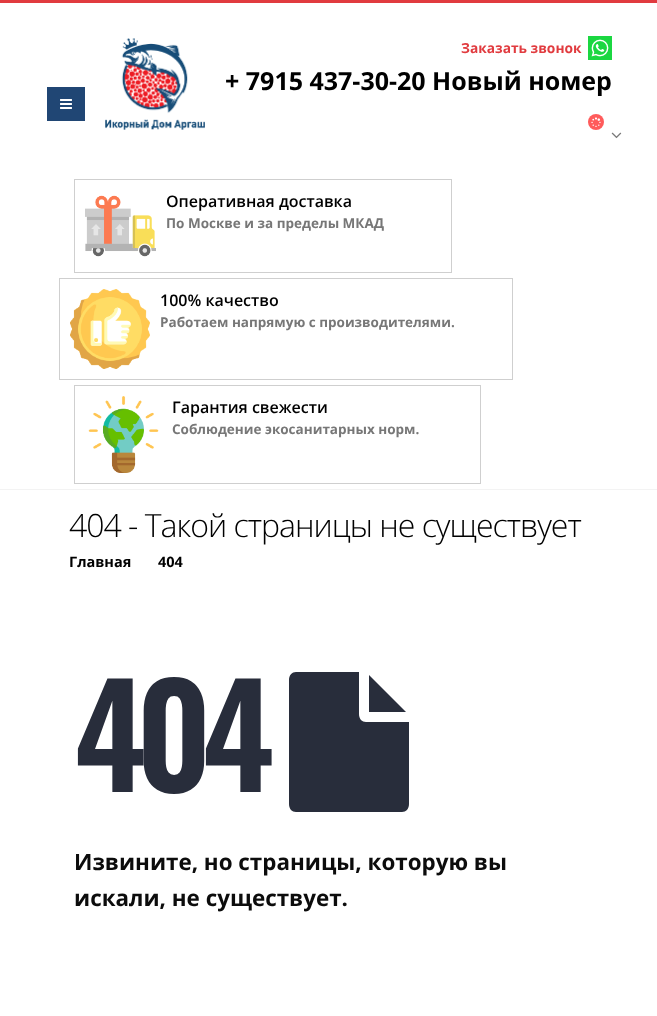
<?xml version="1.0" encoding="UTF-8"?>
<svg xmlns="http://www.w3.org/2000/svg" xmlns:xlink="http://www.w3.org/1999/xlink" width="657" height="1016">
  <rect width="100%" height="100%" fill="#ffffff" />
  <rect width="657" height="3" fill="#e13b3f" />
  <image x="105" y="38" width="100" height="92" xlink:href="image1.png" />
  <image x="588" y="36" width="24" height="24" xlink:href="image2.png" />
  <circle cx="596" cy="122" r="8" fill="#ff5b5b" />
  <image x="591" y="117" width="10" height="10" xlink:href="image3.png" />
  <image x="611" y="132" width="11" height="7" xlink:href="image4.png" />
  <rect x="47" y="87" width="38" height="34" fill="#204674" />
  <image x="60" y="99" width="12" height="10" xlink:href="image5.png" />
  <rect x="74.5" y="179.5" width="377" height="93" fill="none" stroke="#cfcfcf" />
  <image x="85" y="195" width="71" height="62" xlink:href="image6.png" />
  <rect x="59.5" y="278.5" width="453" height="101" fill="none" stroke="#cfcfcf" />
  <image x="70" y="289" width="80" height="80" xlink:href="image7.png" />
  <rect x="74.5" y="385.5" width="406" height="98" fill="none" stroke="#cfcfcf" />
  <image x="88" y="396" width="71" height="77" xlink:href="image8.png" />
  <rect y="489" width="657" height="1" fill="#f3f3f3" />
  <path d="M 369 712 h 37 l -8 -8 l -29 -29 z m -10 2 v -42 h -63 c -4 0 -7 3 -7 8 v 124 c 0 5 3 8 7 8 h 106 c 4 0 7 -3 7 -8 v -82 h -43 c -4 0 -7 -3 -7 -8 z" fill="#282d3b" />
  <text x="461" y="53" style="font-family: Open Sans; font-size: 13.75px; font-weight: bold; fill: #e13b3f">Заказать звонок</text>
  <text x="225" y="90" style="font-family: Open Sans; font-size: 25px; font-weight: bold; fill: #000000">+ 7915 437-30-20 Новый номер</text>
  <text x="166" y="207" style="font-family: Open Sans; font-size: 16px; font-weight: 600; fill: #000000">Оперативная доставка</text>
  <text x="166" y="228" style="font-family: Open Sans; font-size: 13.5px; font-weight: bold; fill: #777777">По Москве и за пределы МКАД</text>
  <text x="160" y="306" style="font-family: Open Sans; font-size: 16px; font-weight: 600; fill: #000000">100% качество</text>
  <text x="160" y="327" style="font-family: Open Sans; font-size: 13.5px; font-weight: bold; fill: #777777">Работаем напрямую с производителями.</text>
  <text x="172" y="413" style="font-family: Open Sans; font-size: 16px; font-weight: 600; fill: #000000">Гарантия свежести</text>
  <text x="172" y="434" style="font-family: Open Sans; font-size: 13.5px; font-weight: bold; fill: #777777">Соблюдение экосанитарных норм.</text>
  <text x="69" y="537" style="font-family: Open Sans; font-size: 32px; font-weight: 300; letter-spacing: -1px; fill: #000000">404 - Такой страницы не существует</text>
  <text x="69" y="567" style="font-family: Open Sans; font-size: 14.5px; font-weight: bold; fill: #000000">Главная</text>
  <text x="158" y="567" style="font-family: Open Sans; font-size: 14.5px; font-weight: bold; fill: #000000">404</text>
  <text x="74" y="792" style="font-family: Oswald; font-size: 140px; font-weight: 600; letter-spacing: -10px; fill: #282d3b">404</text>
  <text x="74" y="870" style="font-family: Open Sans; font-size: 22.4px; font-weight: bold; fill: #0c0c0c">Извините, но страницы, которую вы</text>
  <text x="74" y="906" style="font-family: Open Sans; font-size: 22.4px; font-weight: bold; fill: #0c0c0c">искали, не существует.</text>
</svg>
